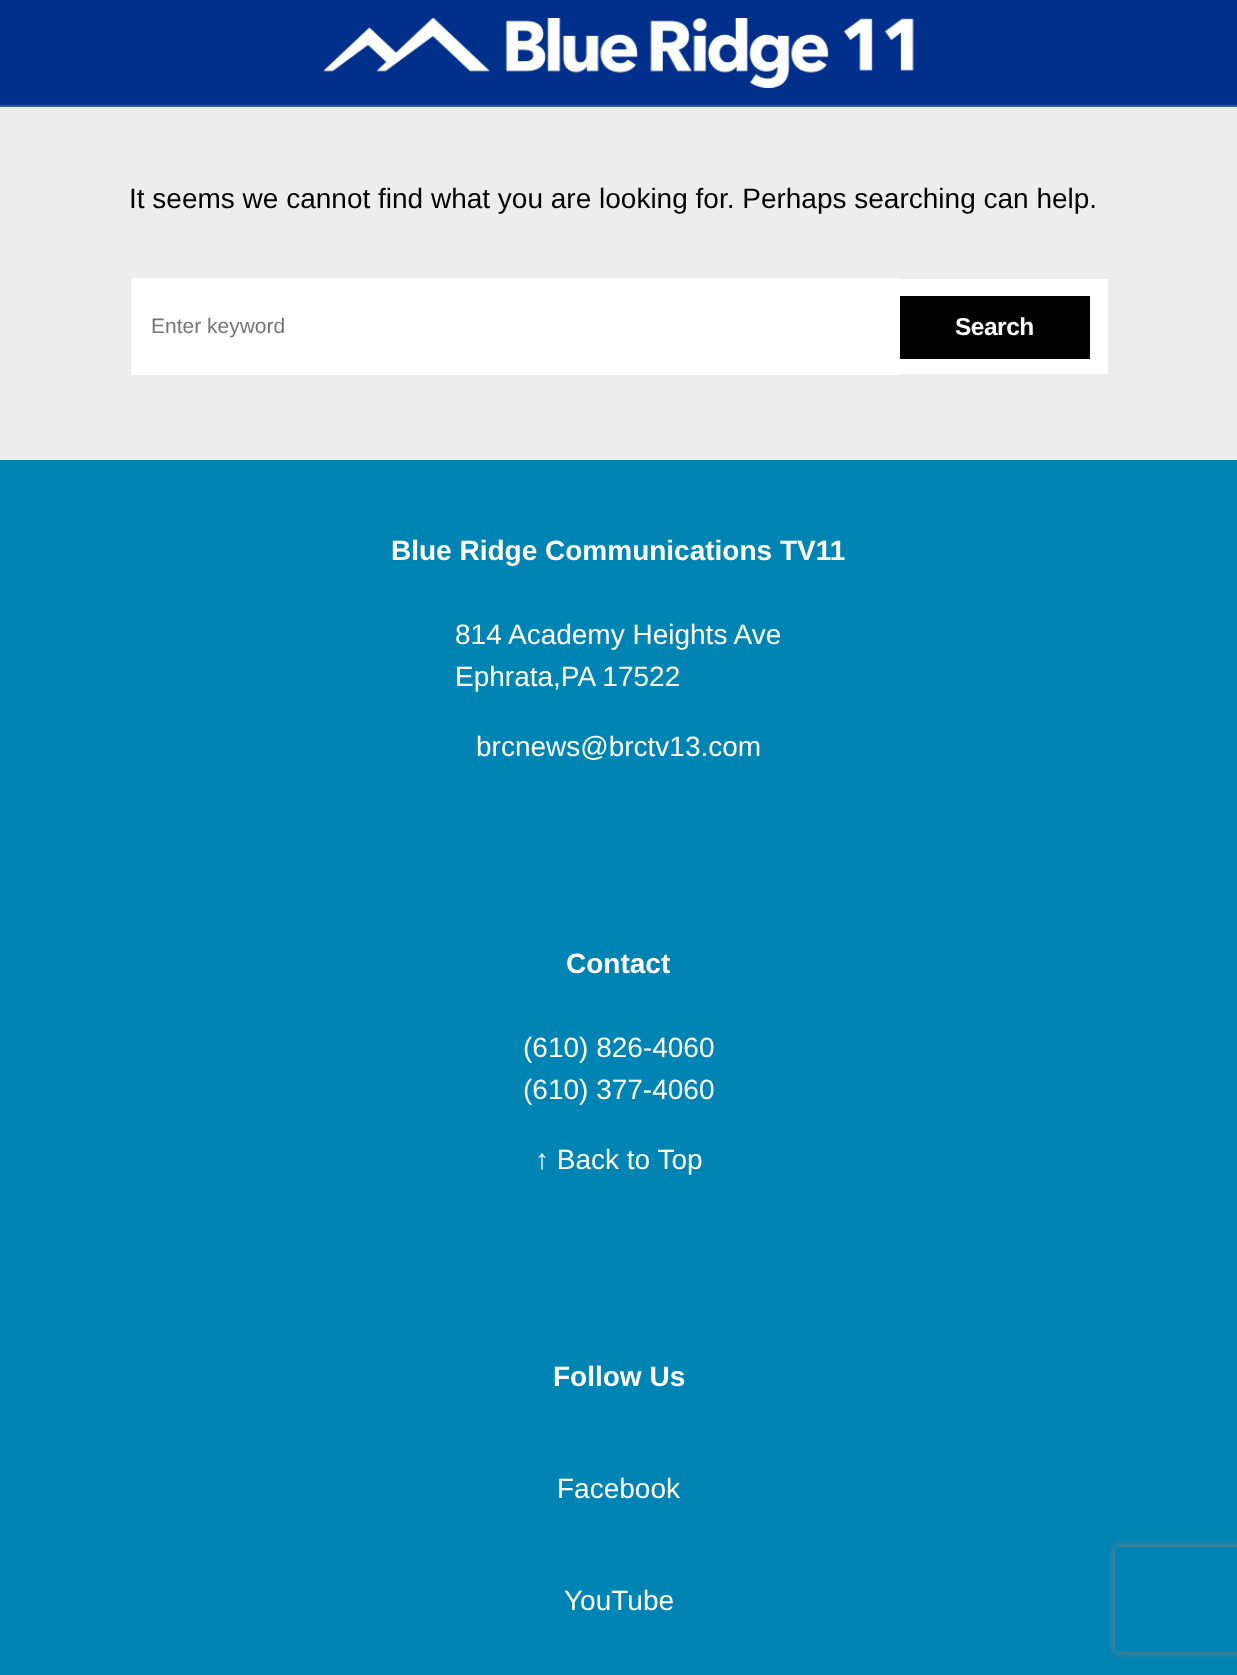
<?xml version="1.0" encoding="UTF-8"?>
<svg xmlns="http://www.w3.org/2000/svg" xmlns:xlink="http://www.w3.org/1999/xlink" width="1237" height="1675">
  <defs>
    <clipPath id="clip1"><path d="M 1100 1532 h 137 v 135 h -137 z m 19 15 h 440 c 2 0 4 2 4 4 v 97 c 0 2 -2 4 -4 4 h -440 c -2 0 -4 -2 -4 -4 v -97 c 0 -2 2 -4 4 -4 z" clip-rule="evenodd" /></clipPath>
  </defs>
  <rect width="100%" height="100%" fill="#ededed" />
  <rect width="1237" height="105" fill="#002f8c" />
  <rect y="105" width="1237" height="2" fill="#3359a3" />
  <image x="323" y="18" width="591" height="70" xlink:href="image1.png" />
  <rect x="900" y="279" width="208" height="95" fill="#ffffff" />
  <rect x="131" y="278" width="978" height="97" fill="none" stroke="#e9ecef" stroke-width="2" />
  <rect x="131" y="278" width="769" height="97" fill="#ffffff" />
  <rect x="900" y="296" width="190" height="63" fill="#000000" />
  <rect y="460" width="1237" height="1215" fill="#0084b4" />
  <g clip-path="url(#clip1)">
    <rect x="1115" y="1547" width="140" height="105" rx="4" fill="#808080" filter="blur(4.5px)" />
  </g>
  <text x="129" y="208" style="font-family: Liberation Sans; font-size: 28px; fill: #000000">It seems we cannot find what you are looking for. Perhaps searching can help.</text>
  <text x="151" y="333" style="font-family: Liberation Sans; font-size: 21px; fill: #757575">Enter keyword</text>
  <text x="955" y="335" style="font-family: Liberation Sans; font-size: 24.5px; font-weight: bold; letter-spacing: -0.5px; fill: #ffffff">Search</text>
  <text x="391" y="560" style="font-family: Liberation Sans; font-size: 28px; font-weight: bold; fill: #ffffff">Blue Ridge Communications TV11</text>
  <text x="455" y="644" style="font-family: Liberation Sans; font-size: 28px; fill: #ffffff">814 Academy Heights Ave</text>
  <text x="455" y="686" style="font-family: Liberation Sans; font-size: 28px; fill: #ffffff">Ephrata,PA 17522</text>
  <text x="476" y="756" style="font-family: Liberation Sans; font-size: 28px; fill: #ffffff">brcnews@brctv13.com</text>
  <text x="566" y="973" style="font-family: Liberation Sans; font-size: 28px; font-weight: bold; fill: #ffffff">Contact</text>
  <text x="523" y="1057" style="font-family: Liberation Sans; font-size: 28px; fill: #ffffff">(610) 826-4060</text>
  <text x="523" y="1099" style="font-family: Liberation Sans; font-size: 28px; fill: #ffffff">(610) 377-4060</text>
  <text x="535" y="1169" style="font-family: Liberation Sans; font-size: 28px; fill: #ffffff">↑ Back to Top</text>
  <text x="553" y="1386" style="font-family: Liberation Sans; font-size: 28px; font-weight: bold; fill: #ffffff">Follow Us</text>
  <text x="557" y="1498" style="font-family: Liberation Sans; font-size: 28px; fill: #ffffff">Facebook</text>
  <text x="564" y="1610" style="font-family: Liberation Sans; font-size: 28px; fill: #ffffff">YouTube</text>
</svg>
